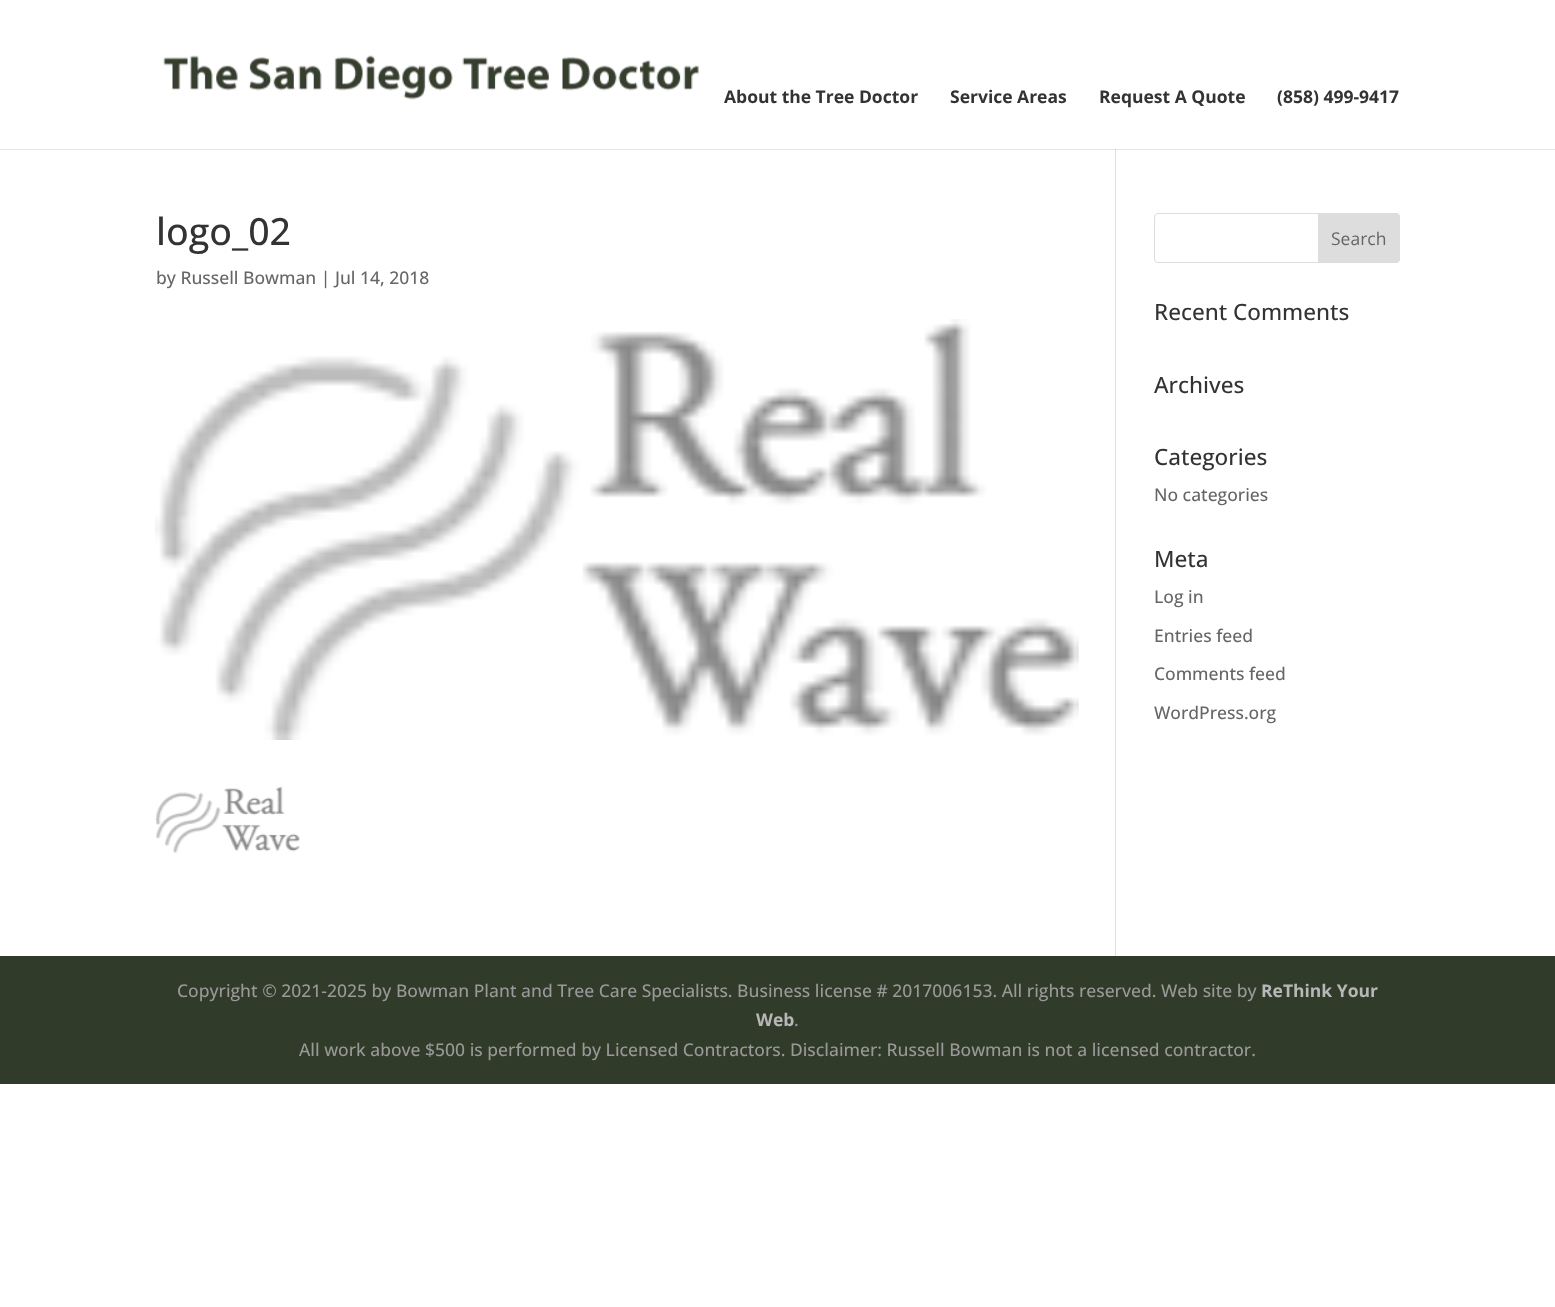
<?xml version="1.0" encoding="UTF-8"?>
<svg xmlns="http://www.w3.org/2000/svg" xmlns:xlink="http://www.w3.org/1999/xlink" width="1555" height="1307">
  <rect width="100%" height="100%" fill="#ffffff" />
  <rect y="149" width="1555" height="1" fill="#e6e6e6" />
  <image x="163" y="55" width="536" height="45" xlink:href="image1.png" />
  <rect x="1115" y="150" width="1" height="806" fill="#e2e2e2" />
  <rect x="1115" y="149" width="1" height="1" fill="#cbcbcb" />
  <image x="155" y="319" width="924" height="421" xlink:href="image2.png" />
  <image x="155" y="786" width="145" height="67" xlink:href="image3.png" />
  <rect x="1154.5" y="213.5" width="245" height="49" rx="3.5" fill="none" stroke="#dddddd" />
  <path d="M 1318.5 213.5 h 77.5 c 2 0 3.5 1.5 3.5 3.5 v 42 c 0 2 -1.5 3.5 -3.5 3.5 h -77.5 z" fill="#dddddd" stroke="#dddddd" />
  <rect y="956" width="1555" height="128" fill="#313b29" />
  <text x="724" y="103" style="font-family: Open Sans; font-size: 17.5px; font-weight: bold; fill: #333333">About the Tree Doctor</text>
  <text x="950" y="103" style="font-family: Open Sans; font-size: 17.5px; font-weight: bold; fill: #333333">Service Areas</text>
  <text x="1099" y="103" style="font-family: Open Sans; font-size: 17.5px; font-weight: bold; fill: #333333">Request A Quote</text>
  <text x="1277" y="103" style="font-family: Open Sans; font-size: 17.5px; font-weight: bold; fill: #333333">(858) 499-9417</text>
  <text x="156" y="245" style="font-family: Open Sans; font-size: 37.5px; font-weight: 500; fill: #333333">logo_02</text>
  <text x="156" y="284" style="font-family: Open Sans; font-size: 17.5px; font-weight: 500; fill: #666666">by Russell Bowman | Jul 14, 2018</text>
  <text x="1331" y="245" style="font-family: Open Sans; font-size: 17.5px; fill: #666666">Search</text>
  <text x="1154" y="320" style="font-family: Open Sans; font-size: 22.5px; font-weight: 500; fill: #333333">Recent Comments</text>
  <text x="1154" y="393" style="font-family: Open Sans; font-size: 22.5px; font-weight: 500; fill: #333333">Archives</text>
  <text x="1154" y="465" style="font-family: Open Sans; font-size: 22.5px; font-weight: 500; fill: #333333">Categories</text>
  <text x="1154" y="501" style="font-family: Open Sans; font-size: 17.5px; font-weight: 500; fill: #666666">No categories</text>
  <text x="1154" y="567" style="font-family: Open Sans; font-size: 22.5px; font-weight: 500; fill: #333333">Meta</text>
  <text x="1154" y="603" style="font-family: Open Sans; font-size: 17.5px; font-weight: 500; fill: #666666">Log in</text>
  <text x="1154" y="642" style="font-family: Open Sans; font-size: 17.5px; font-weight: 500; fill: #666666">Entries feed</text>
  <text x="1154" y="680" style="font-family: Open Sans; font-size: 17.5px; font-weight: 500; fill: #666666">Comments feed</text>
  <text x="1154" y="719" style="font-family: Open Sans; font-size: 17.5px; font-weight: 500; fill: #666666">WordPress.org</text>
  <text x="177" y="997" style="font-family: Open Sans; font-size: 17.5px; font-weight: 500; fill: #999999">Copyright © 2021-2025 by Bowman Plant and Tree Care Specialists. Business license # 2017006153. All rights reserved. Web site by</text>
  <text x="1261" y="997" style="font-family: Open Sans; font-size: 17.5px; font-weight: bold; fill: #b7b7b7">ReThink Your</text>
  <text x="756" y="1026" style="font-family: Open Sans; font-size: 17.5px; font-weight: bold; fill: #b7b7b7">Web</text>
  <text x="794" y="1026" style="font-family: Open Sans; font-size: 17.5px; font-weight: 500; fill: #999999">.</text>
  <text x="299" y="1056" style="font-family: Open Sans; font-size: 17.5px; font-weight: 500; fill: #999999">All work above $500 is performed by Licensed Contractors. Disclaimer: Russell Bowman is not a licensed contractor.</text>
</svg>
